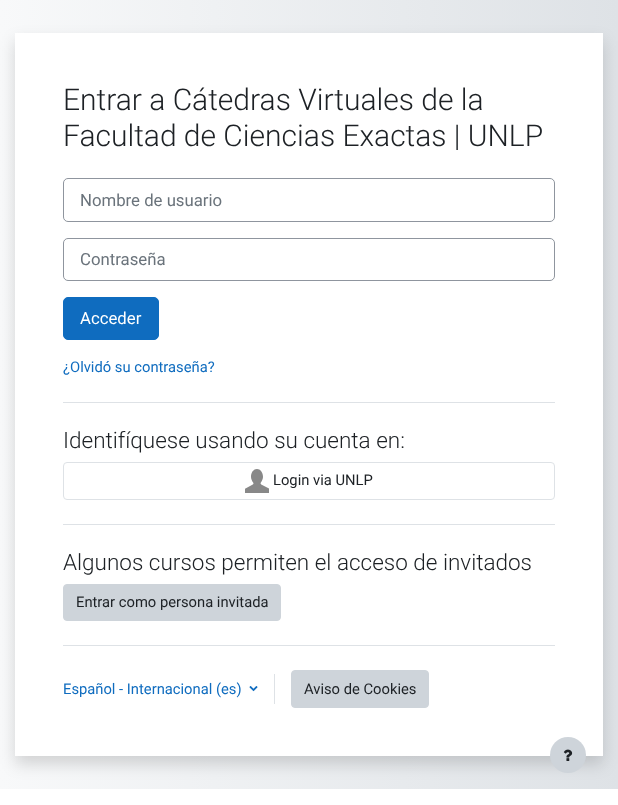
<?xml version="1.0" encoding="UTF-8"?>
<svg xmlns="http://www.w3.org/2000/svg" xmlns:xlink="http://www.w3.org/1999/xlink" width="618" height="805">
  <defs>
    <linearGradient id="g1" gradientUnits="userSpaceOnUse" x1="0" y1="395" x2="618" y2="395"><stop offset="0" stop-color="#f8f9fa" /><stop offset="1" stop-color="#dee2e6" /></linearGradient>
  </defs>
  <rect width="100%" height="100%" fill="#ffffff" />
  <rect width="618" height="789" fill="url(#g1)" />
  <rect x="15" y="41" width="588" height="723" fill="#000000" fill-opacity="0.15" filter="blur(8px)" />
  <rect x="15" y="33" width="588" height="723" fill="#ffffff" />
  <rect x="63.5" y="178.5" width="491" height="43" rx="4.5" fill="none" stroke="#8f959e" />
  <rect x="63.5" y="238.5" width="491" height="42" rx="4.5" fill="none" stroke="#8f959e" />
  <rect x="63.5" y="297.5" width="95" height="42" rx="4.5" fill="#0f6cbf" stroke="#0f6cbf" />
  <rect x="63" y="402" width="492" height="1" fill="#dee2e6" />
  <rect x="63.5" y="462.5" width="491" height="37" rx="3.5" fill="none" stroke="#dee2e6" />
  <image x="245" y="469" width="24" height="24" xlink:href="image1.png" />
  <rect x="63" y="524" width="492" height="1" fill="#dee2e6" />
  <rect x="63.5" y="584.5" width="217" height="36" rx="3.5" fill="#ced4da" stroke="#ced4da" />
  <rect x="63" y="645" width="492" height="1" fill="#dee2e6" />
  <image x="249" y="686" width="9" height="6" xlink:href="image2.png" />
  <rect x="274" y="674" width="1" height="30" fill="#dee2e6" />
  <rect x="291.5" y="670.5" width="137" height="37" rx="3.5" fill="#ced4da" stroke="#ced4da" />
  <circle cx="568" cy="755" r="18" fill="#ced4da" />
  <image x="563" y="749" width="10" height="12" xlink:href="image3.png" />
  <text x="63" y="110" style="font-family: Roboto; font-size: 30px; font-weight: 300; fill: #1d2125">Entrar a Cátedras Virtuales de la</text>
  <text x="63" y="146" style="font-family: Roboto; font-size: 30px; font-weight: 300; fill: #1d2125">Facultad de Ciencias Exactas | UNLP</text>
  <text x="80" y="206" style="font-family: Roboto; font-size: 16.75px; fill: #6a737b">Nombre de usuario</text>
  <text x="80" y="265" style="font-family: Roboto; font-size: 16.75px; fill: #6a737b">Contraseña</text>
  <text x="80" y="324" style="font-family: Roboto; font-size: 16.75px; fill: #ffffff">Acceder</text>
  <text x="63" y="372" style="font-family: Roboto; font-size: 14.75px; fill: #0f6cbf">¿Olvidó su contraseña?</text>
  <text x="63" y="448" style="font-family: Roboto; font-size: 22.5px; font-weight: 300; fill: #1d2125">Identifíquese usando su cuenta en:</text>
  <text x="273" y="485" style="font-family: Roboto; font-size: 14.75px; fill: #1d2125">Login via UNLP</text>
  <text x="63" y="570" style="font-family: Roboto; font-size: 22.5px; font-weight: 300; fill: #1d2125">Algunos cursos permiten el acceso de invitados</text>
  <text x="76" y="607" style="font-family: Roboto; font-size: 14.75px; fill: #1d2125">Entrar como persona invitada</text>
  <text x="63" y="694" style="font-family: Roboto; font-size: 14.75px; fill: #0f6cbf">Español - Internacional (es)</text>
  <text x="304" y="694" style="font-family: Roboto; font-size: 14.75px; fill: #1d2125">Aviso de Cookies</text>
</svg>
